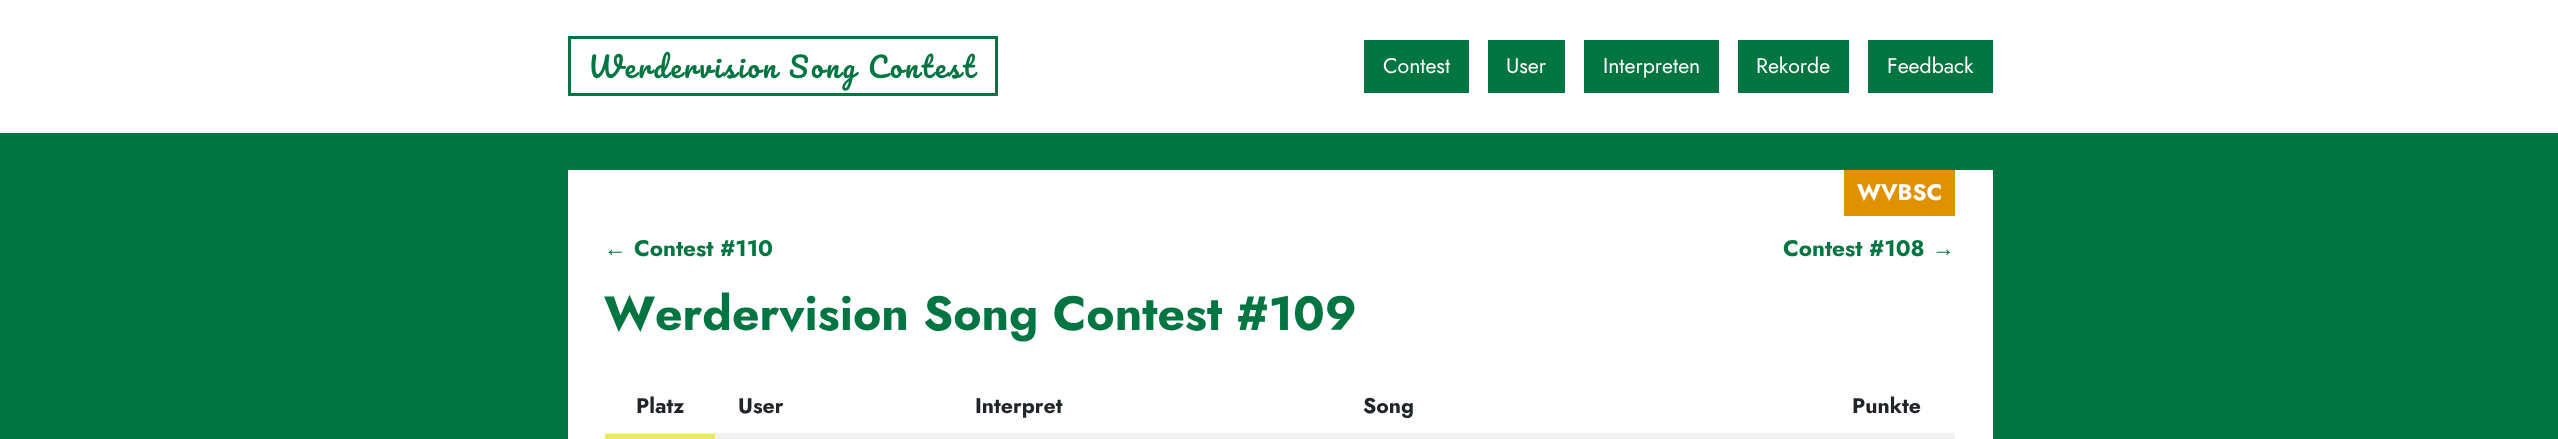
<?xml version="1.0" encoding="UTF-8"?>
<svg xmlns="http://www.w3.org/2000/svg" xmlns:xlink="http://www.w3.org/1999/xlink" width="2558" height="439">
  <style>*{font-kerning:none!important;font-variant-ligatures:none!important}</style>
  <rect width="100%" height="100%" fill="#007541" />
  <rect width="2558" height="133" fill="#ffffff" />
  <rect x="569.5" y="37.5" width="427" height="57" fill="none" stroke="#007541" stroke-width="3" />
  <rect x="1364" y="40" width="105" height="53" fill="#007541" />
  <rect x="1488" y="40" width="77" height="53" fill="#007541" />
  <rect x="1584" y="40" width="135" height="53" fill="#007541" />
  <rect x="1738" y="40" width="111" height="53" fill="#007541" />
  <rect x="1868" y="40" width="125" height="53" fill="#007541" />
  <rect x="568" y="170" width="1425" height="269" fill="#ffffff" />
  <rect x="1844" y="170" width="111" height="46" fill="#e09100" />
  <rect x="605" y="433" width="1350" height="1" fill="#f2f2f2" />
  <rect x="715" y="434" width="1240" height="5" fill="#f2f2f2" />
  <rect x="605" y="434" width="110" height="5" fill="#e9ec55" />
  <text x="588" y="78" style="font-family: Pacifico; font-size: 28px; letter-spacing: 2.5px; fill: #007541">Werdervision Song Contest</text>
  <text x="1383" y="73" style="font-family: Jost; font-size: 21.25px; fill: #ffffff">Contest</text>
  <text x="1506" y="73" style="font-family: Jost; font-size: 21.25px; fill: #ffffff">User</text>
  <text x="1603" y="73" style="font-family: Jost; font-size: 21.25px; fill: #ffffff">Interpreten</text>
  <text x="1756" y="73" style="font-family: Jost; font-size: 21.25px; fill: #ffffff">Rekorde</text>
  <text x="1887" y="73" style="font-family: Jost; font-size: 21.25px; fill: #ffffff">Feedback</text>
  <text x="1857" y="200" style="font-family: Jost; font-size: 22.5px; font-weight: bold; fill: #ffffff">WVBSC</text>
  <text x="604" y="256" style="font-family: Liberation Serif; font-size: 22.5px; font-weight: bold; fill: #007541">←</text>
  <text x="634" y="256" style="font-family: Jost; font-size: 22.5px; font-weight: bold; fill: #007541">Contest #110</text>
  <text x="1783" y="256" style="font-family: Jost; font-size: 22.5px; font-weight: bold; fill: #007541">Contest #108</text>
  <text x="1932" y="256" style="font-family: Liberation Serif; font-size: 22.5px; font-weight: bold; fill: #007541">→</text>
  <text x="604" y="330" style="font-family: Jost; font-size: 48px; font-weight: bold; fill: #007541">Werdervision Song Contest #109</text>
  <text x="636" y="413" style="font-family: Jost; font-size: 21.25px; font-weight: bold; fill: #212529">Platz</text>
  <text x="738" y="413" style="font-family: Jost; font-size: 21.25px; font-weight: bold; fill: #212529">User</text>
  <text x="975" y="413" style="font-family: Jost; font-size: 21.25px; font-weight: bold; fill: #212529">Interpret</text>
  <text x="1363" y="413" style="font-family: Jost; font-size: 21.25px; font-weight: bold; fill: #212529">Song</text>
  <text x="1852" y="413" style="font-family: Jost; font-size: 21.25px; font-weight: bold; fill: #212529">Punkte</text>
</svg>
